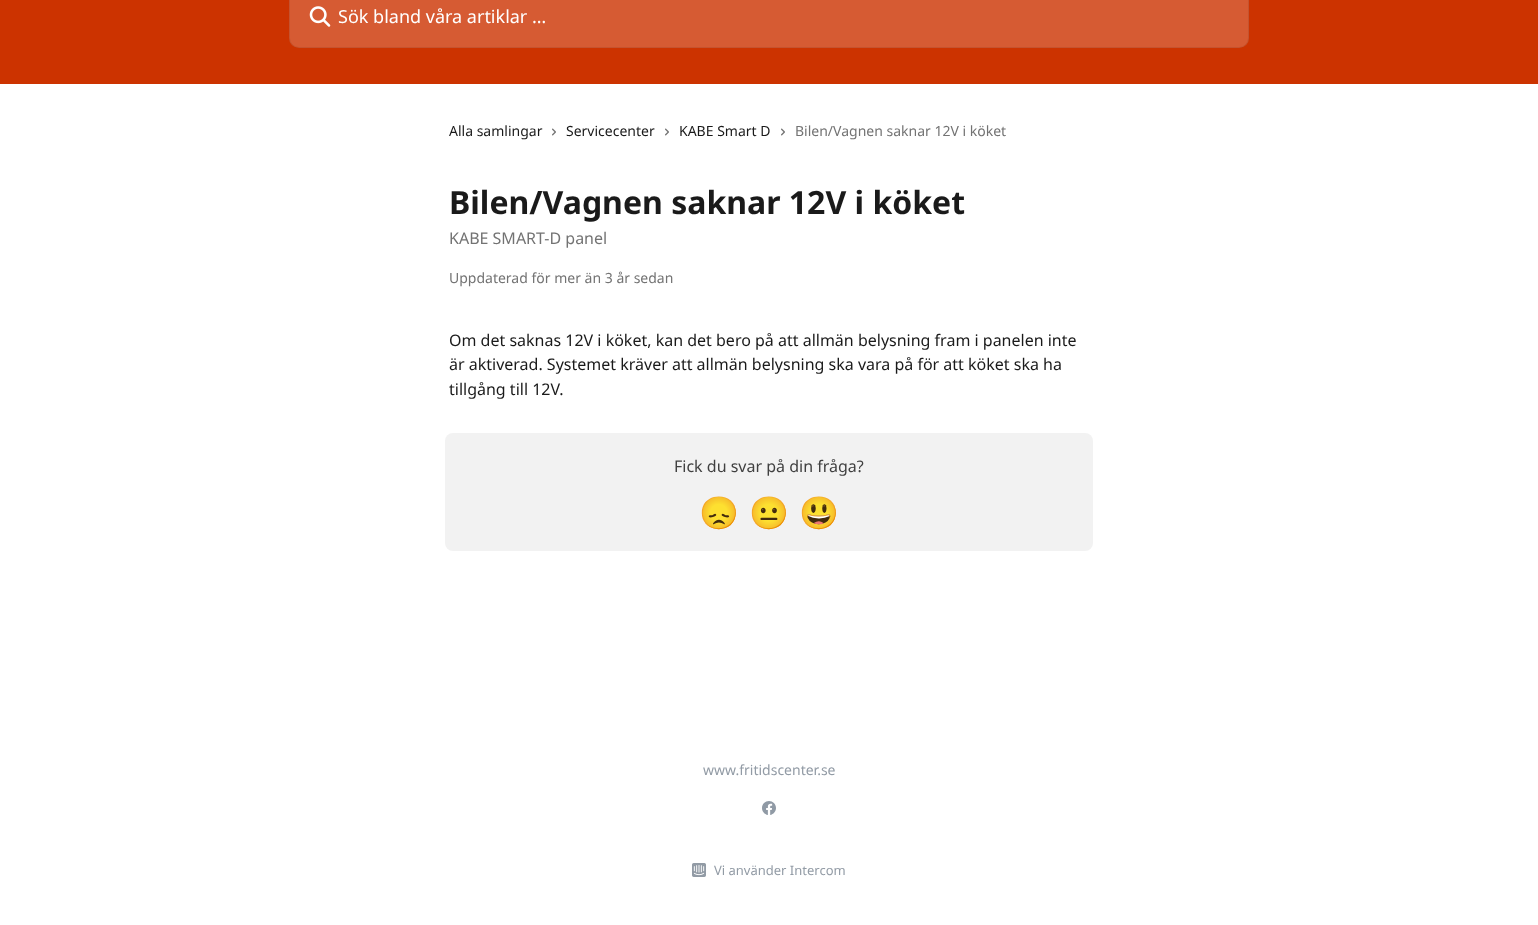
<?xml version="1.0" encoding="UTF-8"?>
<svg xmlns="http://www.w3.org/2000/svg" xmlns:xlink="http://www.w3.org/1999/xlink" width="1538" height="925">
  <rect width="100%" height="100%" fill="#ffffff" />
  <rect width="1538" height="84" fill="#cc3300" />
  <rect x="289" y="-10" width="960" height="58" rx="10" fill="#ffffff" fill-opacity="0.2" />
  <rect x="289.5" y="-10.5" width="959" height="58" rx="9.5" fill="none" stroke="#000000" stroke-opacity="0.08" />
  <image x="309" y="6" width="22" height="21" xlink:href="image1.png" />
  <image x="552" y="128" width="4" height="8" xlink:href="image2.png" />
  <image x="665" y="128" width="4" height="8" xlink:href="image2.png" />
  <image x="781" y="128" width="4" height="8" xlink:href="image2.png" />
  <rect x="445" y="433" width="648" height="118" rx="8" fill="#f2f2f2" />
  <image x="762" y="801" width="14" height="14" xlink:href="image3.png" />
  <image x="692" y="863" width="14" height="14" xlink:href="image4.png" />
  <text x="338" y="23" style="font-family: Noto Sans; font-size: 18px; fill: #ffffff">Sök bland våra artiklar …</text>
  <text x="449" y="136" style="font-family: Noto Sans; font-size: 14px; fill: #1a1a1a">Alla samlingar</text>
  <text x="566" y="136" style="font-family: Noto Sans; font-size: 14px; fill: #1a1a1a">Servicecenter</text>
  <text x="679" y="136" style="font-family: Noto Sans; font-size: 14px; fill: #1a1a1a">KABE Smart D</text>
  <text x="795" y="136" style="font-family: Noto Sans; font-size: 14px; fill: #737373">Bilen/Vagnen saknar 12V i köket</text>
  <text x="449" y="214" style="font-family: Noto Sans; font-size: 32px; font-weight: bold; fill: #1a1a1a">Bilen/Vagnen saknar 12V i köket</text>
  <text x="449" y="244" style="font-family: Noto Sans; font-size: 16px; fill: #737373">KABE SMART-D panel</text>
  <text x="449" y="283" style="font-family: Noto Sans; font-size: 14px; fill: #737373">Uppdaterad för mer än 3 år sedan</text>
  <text x="449" y="346" style="font-family: Noto Sans; font-size: 16px; fill: #1a1a1a">Om det saknas 12V i köket, kan det bero på att allmän belysning fram i panelen inte</text>
  <text x="449" y="370" style="font-family: Noto Sans; font-size: 16px; fill: #1a1a1a">är aktiverad. Systemet kräver att allmän belysning ska vara på för att köket ska ha</text>
  <text x="449" y="395" style="font-family: Noto Sans; font-size: 16px; fill: #1a1a1a">tillgång till 12V.</text>
  <text x="674" y="472" style="font-family: Noto Sans; font-size: 16px; fill: #404040">Fick du svar på din fråga?</text>
  <text x="699" y="524" style="font-family: Noto Color Emoji; font-size: 32px; fill: #404040">😞</text>
  <text x="749" y="524" style="font-family: Noto Color Emoji; font-size: 32px; fill: #404040">😐</text>
  <text x="799" y="524" style="font-family: Noto Color Emoji; font-size: 32px; fill: #404040">😃</text>
  <text x="703" y="775" style="font-family: Noto Sans; font-size: 14px; fill: #929ba5">www.fritidscenter.se</text>
  <text x="714" y="875" style="font-family: Noto Sans; font-size: 13px; fill: #929ba5">Vi använder Intercom</text>
</svg>
